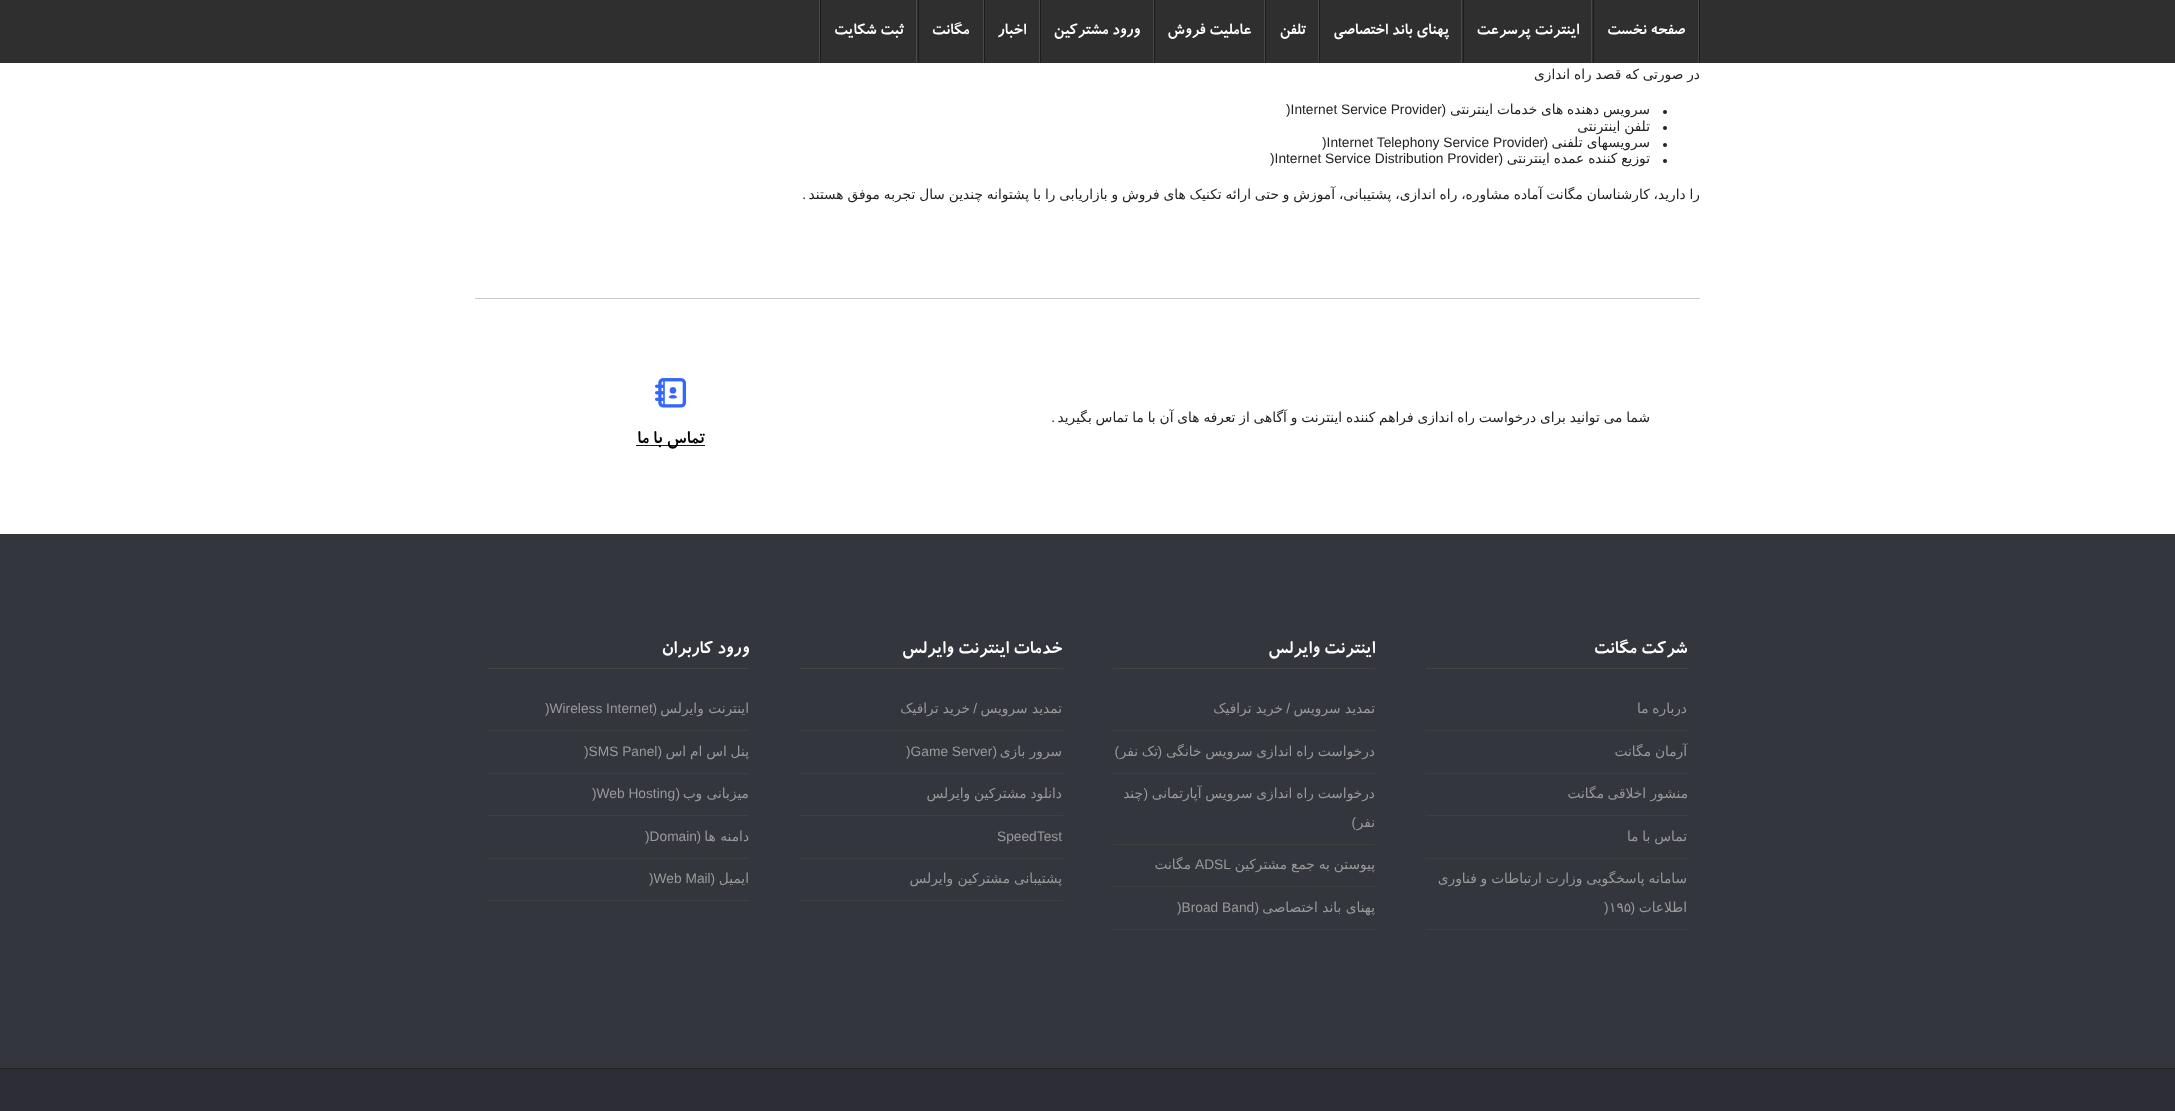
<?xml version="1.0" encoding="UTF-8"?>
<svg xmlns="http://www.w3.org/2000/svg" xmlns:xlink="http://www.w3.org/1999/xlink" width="2175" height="1111">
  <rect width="100%" height="100%" fill="#ffffff" />
  <rect width="2175" height="63" fill="#2f2f2f" />
  <rect x="1699" width="1" height="63" fill="#1c1c1c" />
  <rect x="819" width="1" height="63" fill="#484848" />
  <rect x="1698" width="1" height="63" fill="#484848" />
  <rect x="1593" width="1" height="63" fill="#1c1c1c" />
  <rect x="1591" width="1" height="63" fill="#484848" />
  <rect x="1463" width="1" height="63" fill="#1c1c1c" />
  <rect x="1461" width="1" height="63" fill="#484848" />
  <rect x="1319" width="1" height="63" fill="#1c1c1c" />
  <rect x="1318" width="1" height="63" fill="#484848" />
  <rect x="1265" width="1" height="63" fill="#1c1c1c" />
  <rect x="1264" width="1" height="63" fill="#484848" />
  <rect x="1154" width="1" height="63" fill="#1c1c1c" />
  <rect x="1153" width="1" height="63" fill="#484848" />
  <rect x="1040" width="1" height="63" fill="#1c1c1c" />
  <rect x="1039" width="1" height="63" fill="#484848" />
  <rect x="984" width="1" height="63" fill="#1c1c1c" />
  <rect x="983" width="1" height="63" fill="#484848" />
  <rect x="918" width="1" height="63" fill="#1c1c1c" />
  <rect x="916" width="1" height="63" fill="#484848" />
  <rect x="820" width="1" height="63" fill="#1c1c1c" />
  <circle cx="1665" cy="112" r="2" fill="#222222" />
  <circle cx="1665" cy="128" r="2" fill="#222222" />
  <circle cx="1665" cy="145" r="2" fill="#222222" />
  <circle cx="1665" cy="161" r="2" fill="#222222" />
  <rect x="475" y="298" width="1225" height="1" fill="#cccccc" />
  <image x="655" y="378" width="31" height="30" xlink:href="image1.png" />
  <rect x="636" y="445" width="69" height="1" fill="#0000ee" />
  <rect y="534" width="2175" height="534" fill="#34363e" />
  <rect x="1426" y="668" width="262" height="1" fill="#444444" />
  <rect x="1426" y="730" width="262" height="1" fill="#3f3f3f" />
  <rect x="1426" y="773" width="262" height="1" fill="#3f3f3f" />
  <rect x="1426" y="815" width="262" height="1" fill="#3f3f3f" />
  <rect x="1426" y="858" width="262" height="1" fill="#3f3f3f" />
  <rect x="1426" y="929" width="262" height="1" fill="#3f3f3f" />
  <rect x="1113" y="668" width="262" height="1" fill="#444444" />
  <rect x="1113" y="730" width="262" height="1" fill="#3f3f3f" />
  <rect x="1113" y="773" width="262" height="1" fill="#3f3f3f" />
  <rect x="1113" y="844" width="262" height="1" fill="#3f3f3f" />
  <rect x="1113" y="886" width="262" height="1" fill="#3f3f3f" />
  <rect x="1113" y="929" width="262" height="1" fill="#3f3f3f" />
  <rect x="800" y="668" width="263" height="1" fill="#444444" />
  <rect x="800" y="730" width="263" height="1" fill="#3f3f3f" />
  <rect x="800" y="773" width="263" height="1" fill="#3f3f3f" />
  <rect x="800" y="815" width="263" height="1" fill="#3f3f3f" />
  <rect x="800" y="858" width="263" height="1" fill="#3f3f3f" />
  <rect x="800" y="900" width="263" height="1" fill="#3f3f3f" />
  <rect x="488" y="668" width="261" height="1" fill="#444444" />
  <rect x="488" y="730" width="261" height="1" fill="#3f3f3f" />
  <rect x="488" y="773" width="261" height="1" fill="#3f3f3f" />
  <rect x="488" y="815" width="261" height="1" fill="#3f3f3f" />
  <rect x="488" y="858" width="261" height="1" fill="#3f3f3f" />
  <rect x="488" y="900" width="261" height="1" fill="#3f3f3f" />
  <rect y="1069" width="2175" height="42" fill="#2c2d35" />
  <rect y="1068" width="2175" height="1" fill="#222222" />
  <text x="1685" y="34" style="font-family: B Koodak; font-size: 17.5px; font-weight: bold; direction: rtl; fill: #ffffff">صفحه نخست</text>
  <text x="1579" y="34" style="font-family: B Koodak; font-size: 17.5px; font-weight: bold; direction: rtl; fill: #ffffff">اینترنت پرسرعت</text>
  <text x="1449" y="34" style="font-family: B Koodak; font-size: 17.5px; font-weight: bold; direction: rtl; fill: #ffffff">پهنای باند اختصاصی</text>
  <text x="1306" y="34" style="font-family: B Koodak; font-size: 17.5px; font-weight: bold; direction: rtl; fill: #ffffff">تلفن</text>
  <text x="1251" y="34" style="font-family: B Koodak; font-size: 17.5px; font-weight: bold; direction: rtl; fill: #ffffff">عاملیت فروش</text>
  <text x="1140" y="34" style="font-family: B Koodak; font-size: 17.5px; font-weight: bold; direction: rtl; fill: #ffffff">ورود مشترکین</text>
  <text x="1026" y="34" style="font-family: B Koodak; font-size: 17.5px; font-weight: bold; direction: rtl; fill: #ffffff">اخبار</text>
  <text x="969" y="34" style="font-family: B Koodak; font-size: 17.5px; font-weight: bold; direction: rtl; fill: #ffffff">مگانت</text>
  <text x="904" y="34" style="font-family: B Koodak; font-size: 17.5px; font-weight: bold; direction: rtl; fill: #ffffff">ثبت شکایت</text>
  <text x="1700" y="79" word-spacing="-0.5" style="font-family: DejaVu Sans; font-size: 13.75px; direction: rtl; fill: #222222">در صورتی</text>
  <text x="1639" y="79" word-spacing="-0.5" style="font-family: DejaVu Sans; font-size: 13.75px; direction: rtl; fill: #222222">که قصد راه اندازی</text>
  <text x="1650" y="114" word-spacing="-0.5" style="font-family: DejaVu Sans; font-size: 13.75px; direction: rtl; fill: #222222">سرویس دهنده های خدمات اینترنتی</text>
  <text x="1446" y="114" style="font-family: Liberation Sans; font-size: 13.75px; direction: rtl; fill: #222222">(</text>
  <text x="1286" y="114" style="font-family: Liberation Sans; font-size: 13.75px; fill: #222222">)Internet Service Provider</text>
  <text x="1650" y="131" word-spacing="-0.5" style="font-family: DejaVu Sans; font-size: 13.75px; direction: rtl; fill: #222222">تلفن اینترنتی</text>
  <text x="1650" y="147" style="font-family: DejaVu Sans; font-size: 13.75px; direction: rtl; fill: #222222">سرویسهای تلفنی</text>
  <text x="1548" y="147" style="font-family: Liberation Sans; font-size: 13.75px; direction: rtl; fill: #222222">(</text>
  <text x="1322" y="147" style="font-family: Liberation Sans; font-size: 13.75px; fill: #222222">)Internet Telephony Service Provider</text>
  <text x="1650" y="163" word-spacing="-0.5" style="font-family: DejaVu Sans; font-size: 13.75px; direction: rtl; fill: #222222">توزیع کننده عمده اینترنتی</text>
  <text x="1503" y="163" style="font-family: Liberation Sans; font-size: 13.75px; direction: rtl; fill: #222222">(</text>
  <text x="1270" y="163" style="font-family: Liberation Sans; font-size: 13.75px; fill: #222222">)Internet Service Distribution Provider</text>
  <text x="1700" y="199" word-spacing="-0.5" style="font-family: DejaVu Sans; font-size: 13.75px; direction: rtl; fill: #222222">را دارید، کارشناسان مگانت آماده مشاوره، راه اندازی، پشتیبانی، آموزش و حتی ارائه تکنیک های فروش و بازاریابی را با پشتوانه چندین سال تجربه موفق هستند</text>
  <text x="806" y="199" style="font-family: Liberation Sans; font-size: 13.75px; direction: rtl; fill: #222222">.</text>
  <text x="1650" y="422" word-spacing="-0.5" style="font-family: DejaVu Sans; font-size: 13.75px; direction: rtl; fill: #222222">شما می توانید برای درخواست راه اندازی فراهم کننده اینترنت و آگاهی از تعرفه های آن با ما تماس بگیرید</text>
  <text x="1055" y="422" style="font-family: Liberation Sans; font-size: 13.75px; direction: rtl; fill: #222222">.</text>
  <text x="705" y="443" style="font-family: B Koodak; font-size: 20px; font-weight: bold; direction: rtl; fill: #000000">تماس با ما</text>
  <text x="1687" y="653" style="font-family: B Koodak; font-size: 20px; font-weight: bold; direction: rtl; fill: #ffffff">شرکت مگانت</text>
  <text x="1687" y="713" word-spacing="-0.5" style="font-family: DejaVu Sans; font-size: 13.75px; direction: rtl; fill: #999999">درباره ما</text>
  <text x="1687" y="756" word-spacing="-0.5" style="font-family: DejaVu Sans; font-size: 13.75px; direction: rtl; fill: #999999">آرمان مگانت</text>
  <text x="1688" y="798" style="font-family: DejaVu Sans; font-size: 13.75px; direction: rtl; fill: #999999">منشور اخلاقی</text>
  <text x="1604" y="798" style="font-family: DejaVu Sans; font-size: 13.75px; direction: rtl; fill: #999999">مگانت</text>
  <text x="1687" y="841" word-spacing="-0.5" style="font-family: DejaVu Sans; font-size: 13.75px; direction: rtl; fill: #999999">تماس با ما</text>
  <text x="1687" y="883" word-spacing="-0.5" style="font-family: DejaVu Sans; font-size: 13.75px; direction: rtl; fill: #999999">سامانه پاسخگویی وزارت ارتباطات و فناوری</text>
  <text x="1687" y="912" style="font-family: DejaVu Sans; font-size: 13.75px; direction: rtl; fill: #999999">اطلاعات</text>
  <text x="1635" y="912" style="font-family: Liberation Sans; font-size: 13.75px; direction: rtl; fill: #999999">(</text>
  <text x="1609" y="912" style="font-family: DejaVu Sans; font-size: 13.75px; fill: #999999">۱۹۵</text>
  <text x="1604" y="912" style="font-family: Liberation Sans; font-size: 13.75px; fill: #999999">)</text>
  <text x="1375" y="653" style="font-family: B Koodak; font-size: 20px; font-weight: bold; direction: rtl; fill: #ffffff">اینترنت وایرلس</text>
  <text x="1375" y="713" style="font-family: DejaVu Sans; font-size: 13.75px; direction: rtl; fill: #999999">تمدید سرویس</text>
  <text x="1290" y="713" style="font-family: Liberation Sans; font-size: 13.75px; direction: rtl; fill: #999999">/</text>
  <text x="1283" y="713" style="font-family: DejaVu Sans; font-size: 13.75px; direction: rtl; fill: #999999">خرید ترافیک</text>
  <text x="1375" y="756" word-spacing="-0.5" style="font-family: DejaVu Sans; font-size: 13.75px; direction: rtl; fill: #999999">درخواست راه اندازی سرویس خانگی</text>
  <text x="1162" y="756" style="font-family: Liberation Sans; font-size: 13.75px; direction: rtl; fill: #999999">(</text>
  <text x="1119" y="756" style="font-family: Liberation Sans; font-size: 13.75px; direction: rtl; fill: #999999">)</text>
  <text x="1158" y="756" word-spacing="-0.5" style="font-family: DejaVu Sans; font-size: 13.75px; direction: rtl; fill: #999999">تک نفر</text>
  <text x="1375" y="798" word-spacing="-0.5" style="font-family: DejaVu Sans; font-size: 13.75px; direction: rtl; fill: #999999">درخواست راه اندازی سرویس آپارتمانی</text>
  <text x="1148" y="798" style="font-family: Liberation Sans; font-size: 13.75px; direction: rtl; fill: #999999">(</text>
  <text x="1143" y="798" style="font-family: DejaVu Sans; font-size: 13.75px; direction: rtl; fill: #999999">چند</text>
  <text x="1356" y="827" style="font-family: Liberation Sans; font-size: 13.75px; direction: rtl; fill: #999999">)</text>
  <text x="1375" y="827" style="font-family: DejaVu Sans; font-size: 13.75px; direction: rtl; fill: #999999">نفر</text>
  <text x="1375" y="869" word-spacing="-0.5" style="font-family: DejaVu Sans; font-size: 13.75px; direction: rtl; fill: #999999">پیوستن به جمع مشترکین</text>
  <text x="1195" y="869" style="font-family: Liberation Sans; font-size: 13.75px; fill: #999999">ADSL</text>
  <text x="1191" y="869" style="font-family: DejaVu Sans; font-size: 13.75px; direction: rtl; fill: #999999">مگانت</text>
  <text x="1375" y="912" style="font-family: DejaVu Sans; font-size: 13.75px; direction: rtl; fill: #999999">پهنای باند اختصاصی</text>
  <text x="1259" y="912" style="font-family: Liberation Sans; font-size: 13.75px; direction: rtl; fill: #999999">(</text>
  <text x="1177" y="912" style="font-family: Liberation Sans; font-size: 13.75px; fill: #999999">)Broad Band</text>
  <text x="1062" y="653" style="font-family: B Koodak; font-size: 20px; font-weight: bold; direction: rtl; fill: #ffffff">خدمات اینترنت وایرلس</text>
  <text x="1062" y="713" style="font-family: DejaVu Sans; font-size: 13.75px; direction: rtl; fill: #999999">تمدید سرویس</text>
  <text x="977" y="713" style="font-family: Liberation Sans; font-size: 13.75px; direction: rtl; fill: #999999">/</text>
  <text x="970" y="713" style="font-family: DejaVu Sans; font-size: 13.75px; direction: rtl; fill: #999999">خرید ترافیک</text>
  <text x="1062" y="756" style="font-family: DejaVu Sans; font-size: 13.75px; direction: rtl; fill: #999999">سرور بازی</text>
  <text x="997" y="756" style="font-family: Liberation Sans; font-size: 13.75px; direction: rtl; fill: #999999">(</text>
  <text x="906" y="756" style="font-family: Liberation Sans; font-size: 13.75px; fill: #999999">)Game Server</text>
  <text x="1062" y="798" word-spacing="-0.5" style="font-family: DejaVu Sans; font-size: 13.75px; direction: rtl; fill: #999999">دانلود مشترکین وایرلس</text>
  <text x="997" y="841" style="font-family: Liberation Sans; font-size: 13.75px; fill: #999999">SpeedTest</text>
  <text x="1062" y="883" style="font-family: DejaVu Sans; font-size: 13.75px; direction: rtl; fill: #999999">پشتیبانی</text>
  <text x="1010" y="883" style="font-family: DejaVu Sans; font-size: 13.75px; direction: rtl; fill: #999999">مشترکین وایرلس</text>
  <text x="749" y="653" style="font-family: B Koodak; font-size: 20px; font-weight: bold; direction: rtl; fill: #ffffff">ورود کاربران</text>
  <text x="749" y="713" style="font-family: DejaVu Sans; font-size: 13.75px; direction: rtl; fill: #999999">اینترنت وایرلس</text>
  <text x="657" y="713" style="font-family: Liberation Sans; font-size: 13.75px; direction: rtl; fill: #999999">(</text>
  <text x="545" y="713" style="font-family: Liberation Sans; font-size: 13.75px; fill: #999999">)Wireless Internet</text>
  <text x="749" y="756" word-spacing="-0.5" style="font-family: DejaVu Sans; font-size: 13.75px; direction: rtl; fill: #999999">پنل اس ام اس</text>
  <text x="662" y="756" style="font-family: Liberation Sans; font-size: 13.75px; direction: rtl; fill: #999999">(</text>
  <text x="584" y="756" style="font-family: Liberation Sans; font-size: 13.75px; fill: #999999">)SMS Panel</text>
  <text x="749" y="798" style="font-family: DejaVu Sans; font-size: 13.75px; direction: rtl; fill: #999999">میزبانی وب</text>
  <text x="680" y="798" style="font-family: Liberation Sans; font-size: 13.75px; direction: rtl; fill: #999999">(</text>
  <text x="592" y="798" style="font-family: Liberation Sans; font-size: 13.75px; fill: #999999">)Web Hosting</text>
  <text x="749" y="841" style="font-family: DejaVu Sans; font-size: 13.75px; direction: rtl; fill: #999999">دامنه ها</text>
  <text x="701" y="841" style="font-family: Liberation Sans; font-size: 13.75px; direction: rtl; fill: #999999">(</text>
  <text x="645" y="841" style="font-family: Liberation Sans; font-size: 13.75px; fill: #999999">)Domain</text>
  <text x="749" y="883" style="font-family: DejaVu Sans; font-size: 13.75px; direction: rtl; fill: #999999">ایمیل</text>
  <text x="715" y="883" style="font-family: Liberation Sans; font-size: 13.75px; direction: rtl; fill: #999999">(</text>
  <text x="649" y="883" style="font-family: Liberation Sans; font-size: 13.75px; fill: #999999">)Web Mail</text>
</svg>
